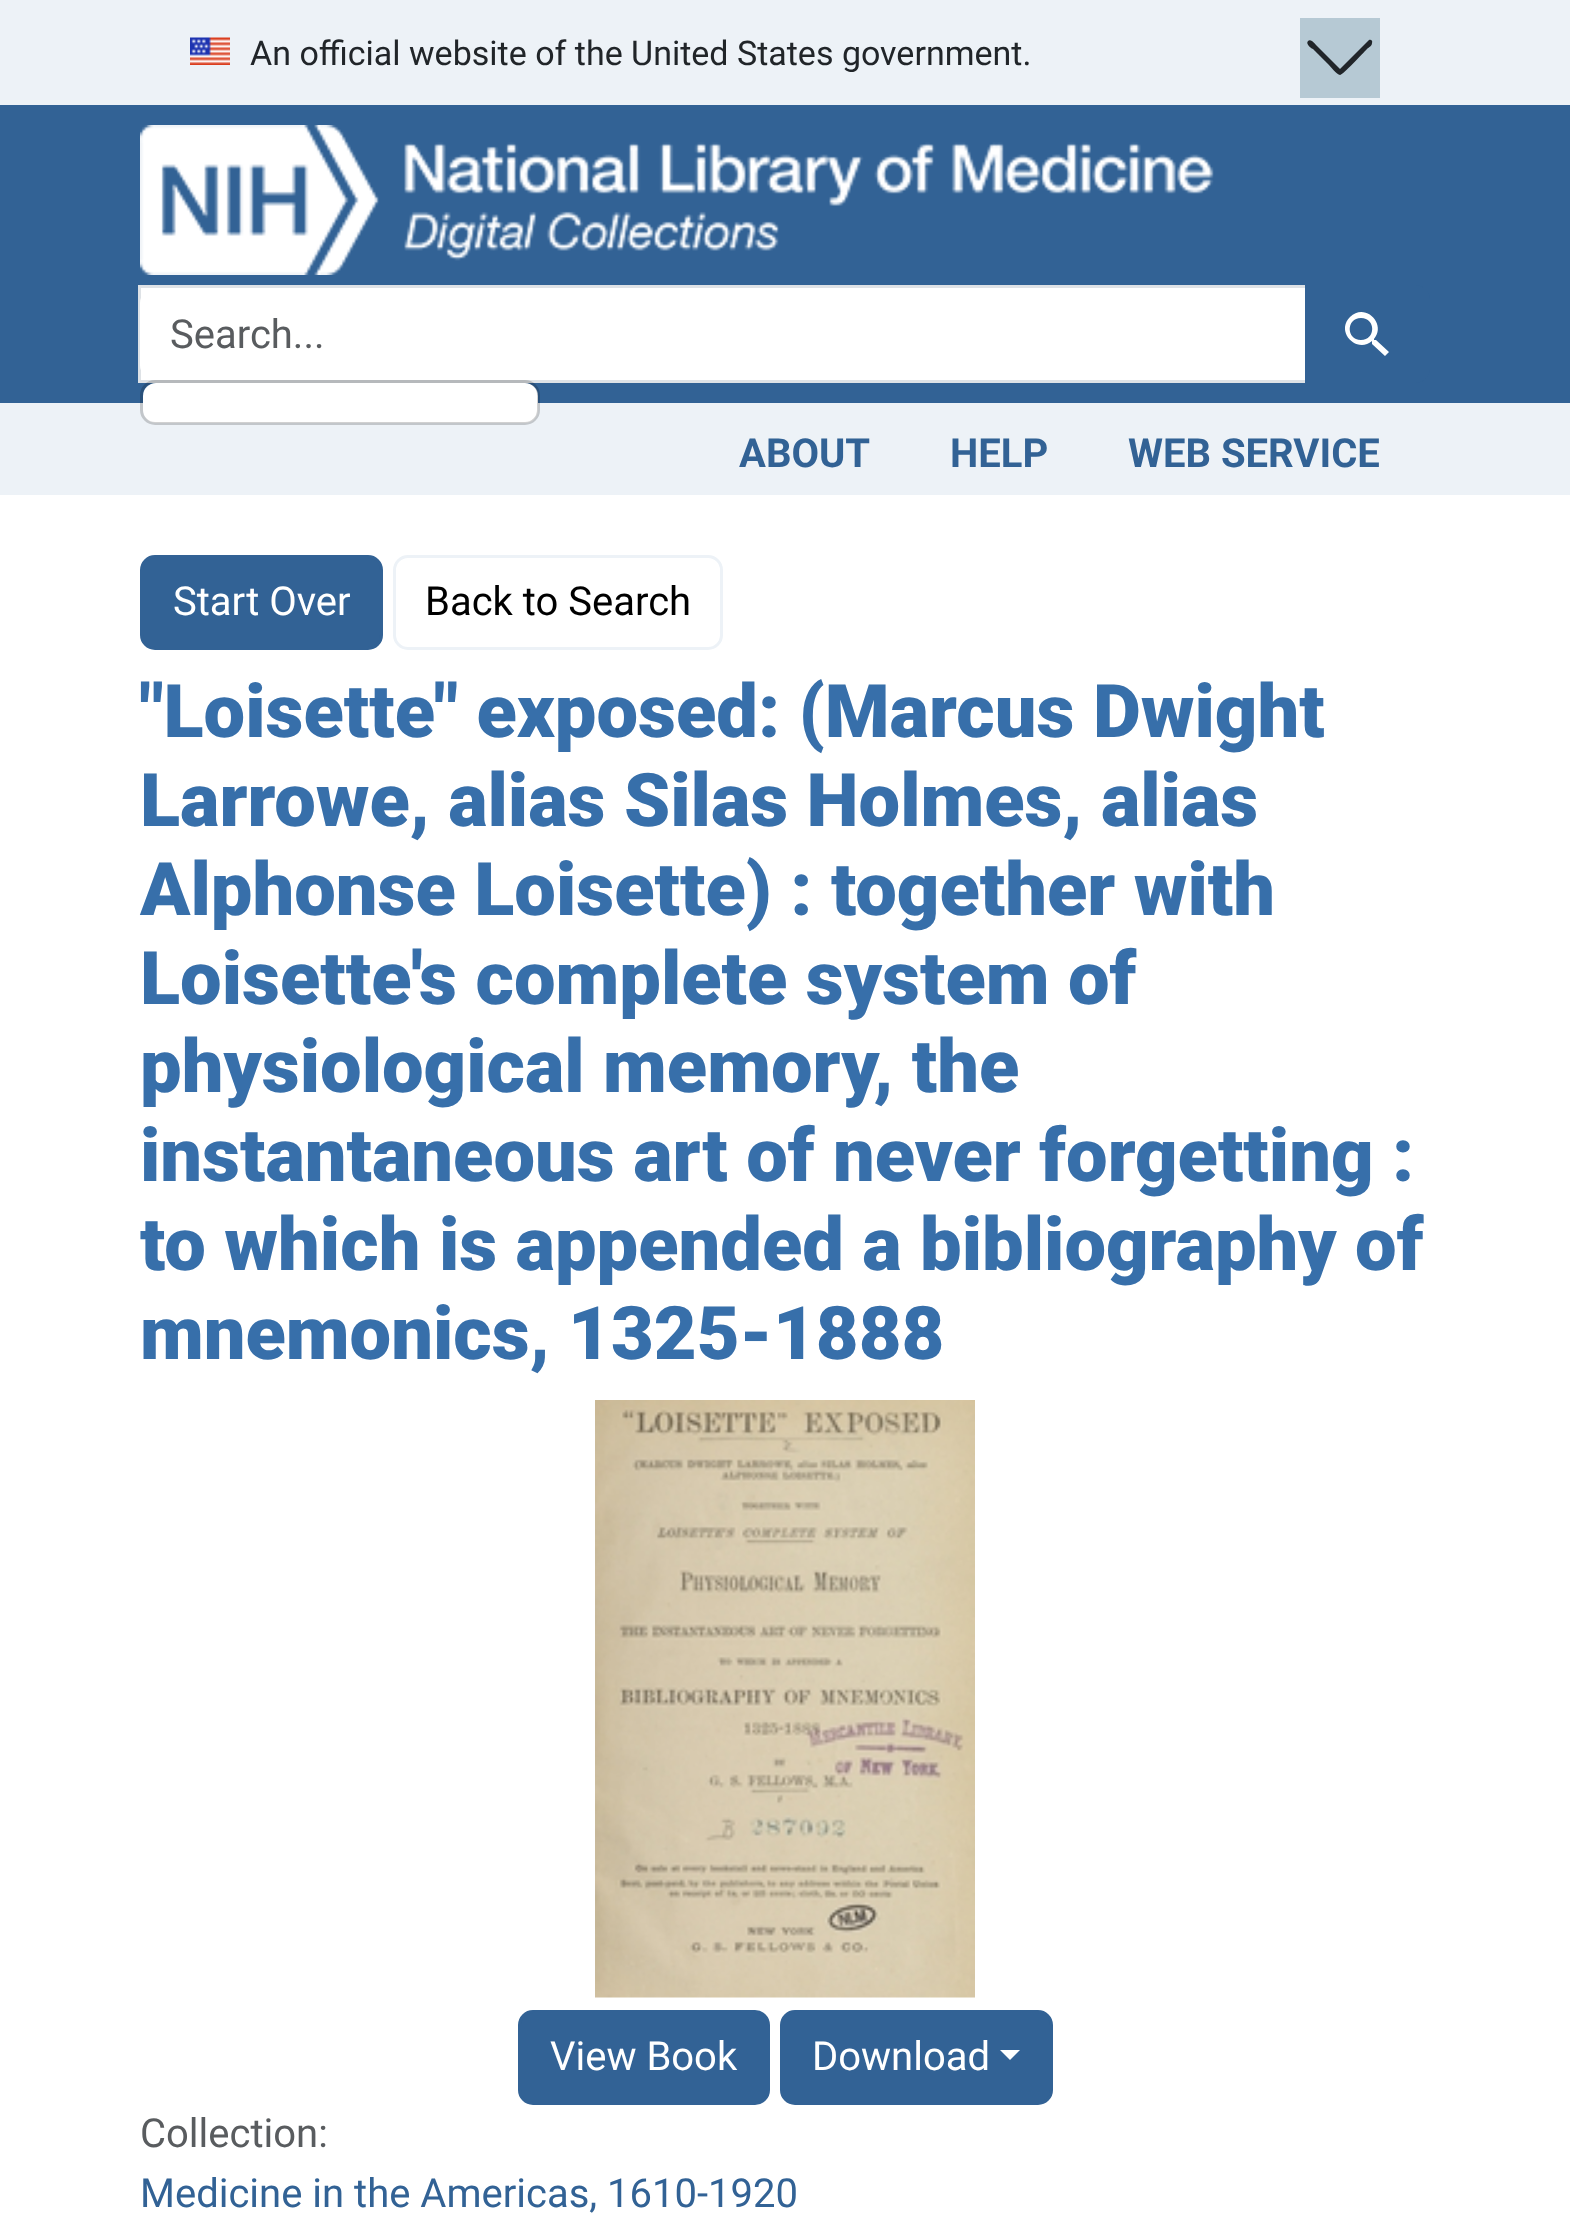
<?xml version="1.0" encoding="UTF-8"?>
<svg xmlns="http://www.w3.org/2000/svg" xmlns:xlink="http://www.w3.org/1999/xlink" width="1570" height="2237">
  <rect width="100%" height="100%" fill="#ffffff" />
  <rect width="1570" height="105" fill="#edf2f7" />
  <image x="190" y="37" width="40" height="28" xlink:href="image1.png" />
  <rect x="1300" y="18" width="80" height="80" fill="#b6c9d4" />
  <path d="M 1308 41 c 3 -3 8 4 8 4 l 24 24 l 29 -29 c 2 -1 4 1 3 3 c 0 3 -3 4 -5 6 c -4 4 -24 26 -27 26 c -3 0 -10 -9 -12 -11 l -15 -15 c -1 0 -8 -5 -5 -8 z" fill="#212529" fill-rule="evenodd" />
  <rect y="105" width="1570" height="298" fill="#326295" />
  <image x="140" y="125" width="1074" height="150" xlink:href="image2.png" />
  <rect x="139.5" y="286.5" width="1167" height="95" fill="#ffffff" stroke="#dee2e6" stroke-width="3" />
  <rect x="140" y="288" width="1165" height="92" rx="15" fill="#ffffff" />
  <rect y="403" width="1570" height="92" fill="#edf2f7" />
  <rect x="143" y="383" width="395" height="40" rx="13" fill="#ffffff" />
  <rect x="141.5" y="381.5" width="397" height="42" rx="13.5" fill="none" stroke="#000000" stroke-opacity="0.18" stroke-width="3" />
  <path d="M 1305 285 h 110 c 8.5 0 15 6.5 15 15 v 68 c 0 8.5 -6.5 15 -15 15 h -110 z" fill="#326295" />
  <path d="M 1376 340 h -2 v -1 c 13 -15 -9 -37 -24 -22 c -15 15 7 37 22 24 v 1 v 2 l 13 12 l 4 -4 z m -15 0 c -15 0 -15 -22 0 -22 c 15 0 15 22 0 22 z" fill="#ffffff" />
  <rect x="141.5" y="556.5" width="240" height="92" rx="13.5" fill="#326295" stroke="#326295" stroke-width="3" />
  <rect x="394.5" y="556.5" width="327" height="92" rx="13.5" fill="none" stroke="#edf2f7" stroke-width="3" />
  <image x="595" y="1400" width="380" height="598" xlink:href="image3.png" />
  <rect x="519.5" y="2011.5" width="249" height="92" rx="13.5" fill="#326295" stroke="#326295" stroke-width="3" />
  <rect x="781.5" y="2011.5" width="270" height="92" rx="13.5" fill="#326295" stroke="#326295" stroke-width="3" />
  <path d="M 1000 2050 h 20 l -10 10 z" fill="#ffffff" />
  <text x="250" y="65" style="font-family: Roboto; font-size: 34px; fill: #212529">An official website of the United States government.</text>
  <text x="170" y="348" style="font-family: Roboto; font-size: 40px; fill: #595c5f">Search...</text>
  <text x="739" y="467" style="font-family: Roboto; font-size: 40px; font-weight: bold; fill: #326295">ABOUT</text>
  <text x="950" y="467" style="font-family: Roboto; font-size: 40px; font-weight: bold; fill: #326295">HELP</text>
  <text x="1128" y="467" style="font-family: Roboto; font-size: 40px; font-weight: bold; fill: #326295">WEB SERVICE</text>
  <text x="173" y="615" style="font-family: Roboto; font-size: 40px; fill: #ffffff">Start Over</text>
  <text x="425" y="615" style="font-family: Roboto; font-size: 40px; fill: #000000">Back to Search</text>
  <text x="140" y="737" style="font-family: Roboto; font-size: 74px; font-weight: 900; fill: #376faa">"Loisette" exposed: (Marcus Dwight</text>
  <text x="140" y="826" style="font-family: Roboto; font-size: 74px; font-weight: 900; fill: #376faa">Larrowe, alias Silas Holmes, alias</text>
  <text x="140" y="915" style="font-family: Roboto; font-size: 74px; font-weight: 900; fill: #376faa">Alphonse Loisette) : together with</text>
  <text x="140" y="1004" style="font-family: Roboto; font-size: 74px; font-weight: 900; fill: #376faa">Loisette's complete system of</text>
  <text x="140" y="1092" style="font-family: Roboto; font-size: 74px; font-weight: 900; fill: #376faa">physiological memory, the</text>
  <text x="140" y="1181" style="font-family: Roboto; font-size: 74px; font-weight: 900; fill: #376faa">instantaneous art of never forgetting :</text>
  <text x="140" y="1270" style="font-family: Roboto; font-size: 74px; font-weight: 900; fill: #376faa">to which is appended a bibliography of</text>
  <text x="140" y="1359" style="font-family: Roboto; font-size: 74px; font-weight: 900; fill: #376faa">mnemonics, 1325-1888</text>
  <text x="550" y="2070" style="font-family: Roboto; font-size: 40px; fill: #ffffff">View Book</text>
  <text x="812" y="2070" style="font-family: Roboto; font-size: 40px; fill: #ffffff">Download</text>
  <text x="140" y="2147" style="font-family: Roboto; font-size: 40px; fill: #595c5f">Collection:</text>
  <text x="140" y="2207" style="font-family: Roboto; font-size: 40px; fill: #326295">Medicine in the Americas, 1610-1920</text>
</svg>
